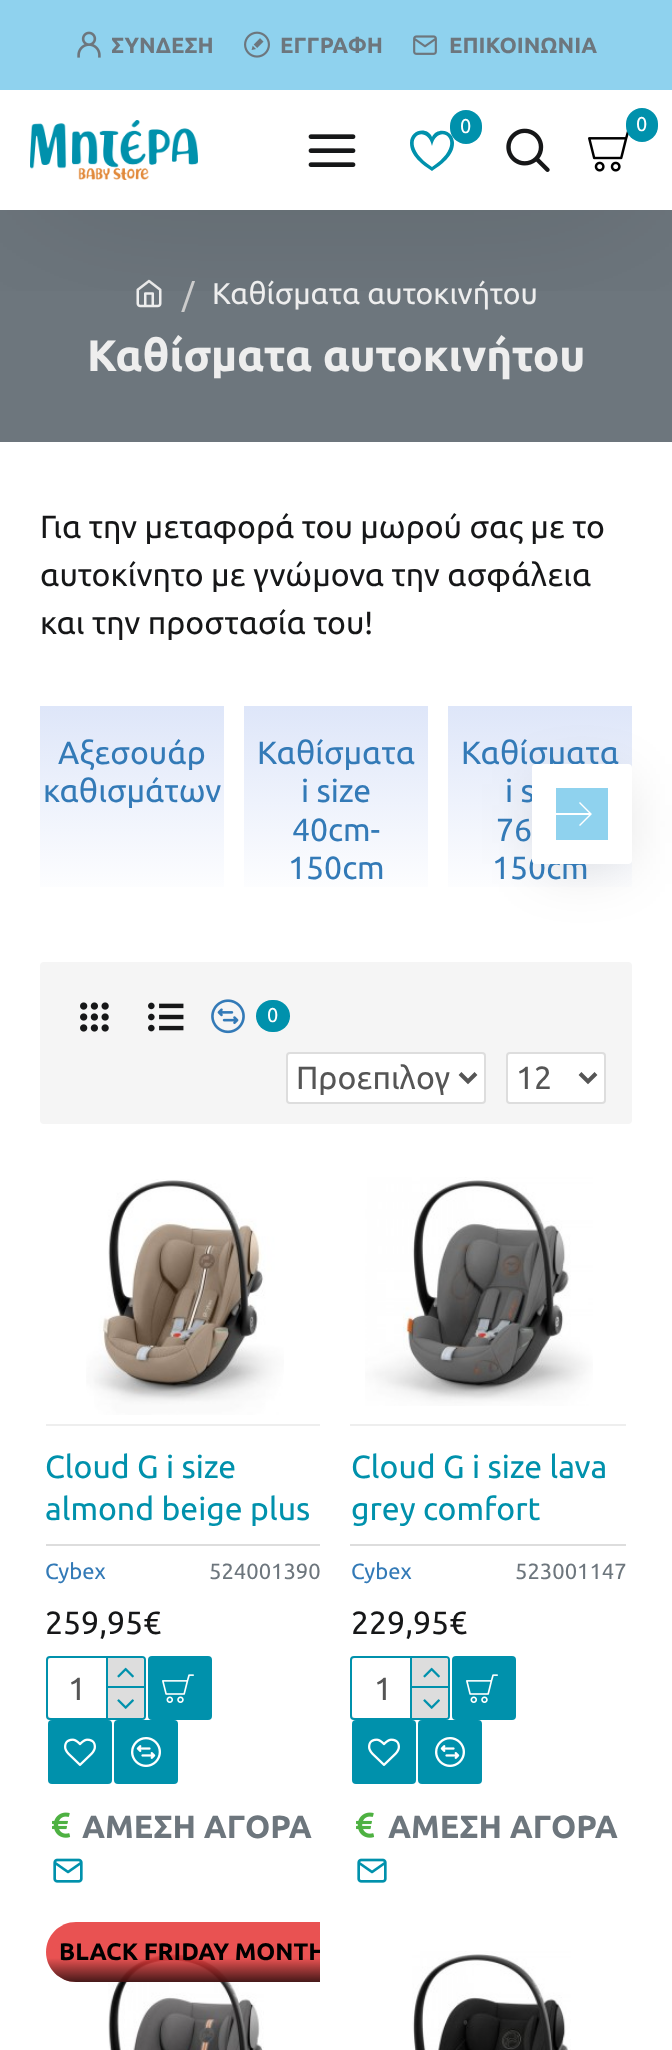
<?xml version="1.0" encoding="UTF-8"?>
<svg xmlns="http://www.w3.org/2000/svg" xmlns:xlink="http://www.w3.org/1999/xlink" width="672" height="2050">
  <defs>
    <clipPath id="clip1"><rect x="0" y="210" width="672" height="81" /></clipPath>
    <linearGradient id="g1" gradientUnits="userSpaceOnUse" x1="540" y1="902" x2="540" y2="706"><stop offset="0" stop-color="#ffffff" /><stop offset="1" stop-color="#dee6f9" /></linearGradient>
    <linearGradient id="g2" gradientUnits="userSpaceOnUse" x1="132" y1="902" x2="132" y2="706"><stop offset="0" stop-color="#ffffff" /><stop offset="1" stop-color="#dee6f9" /></linearGradient>
    <linearGradient id="g3" gradientUnits="userSpaceOnUse" x1="336" y1="902" x2="336" y2="706"><stop offset="0" stop-color="#ffffff" /><stop offset="1" stop-color="#dee6f9" /></linearGradient>
    <clipPath id="clip2"><rect x="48" y="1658" width="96" height="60" rx="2" /></clipPath>
    <clipPath id="clip3"><rect x="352" y="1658" width="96" height="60" rx="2" /></clipPath>
    <linearGradient id="g4" gradientUnits="userSpaceOnUse" x1="235" y1="1982" x2="235" y2="1922"><stop offset="0" stop-color="#000000" stop-opacity="0.7" /><stop offset="0.4" stop-color="#000000" stop-opacity="0" /></linearGradient>
    <clipPath id="clip4"><rect x="112" y="28" width="102" height="34" /></clipPath>
    <clipPath id="clip5"><rect x="46" y="1922" width="274" height="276" /></clipPath>
  </defs>
  <rect width="100%" height="100%" fill="#ffffff" />
  <rect y="210" width="672" height="232" fill="#6d767d" />
  <image x="136" y="279" width="26" height="29" xlink:href="image8.png" />
  <g clip-path="url(#clip1)">
    <rect x="20" y="110" width="632" height="80" fill="#000000" fill-opacity="0.2" filter="blur(85px)" />
  </g>
  <rect width="672" height="90" fill="#8fd2ee" />
  <image x="77" y="31" width="24" height="27" xlink:href="image1.png" />
  <image x="244" y="31" width="26" height="27" xlink:href="image2.png" />
  <image x="413" y="35" width="24" height="20" xlink:href="image3.png" />
  <image x="30" y="120" width="168" height="60" xlink:href="image4.png" />
  <path d="M 432 146 c 6 -26 38 -4 0 21 c -38 -25 -6 -47 0 -21 z m -22 -3 c 0 13 13 22 22 28 c 9 -6 22 -15 22 -28 c 0 -2 -1 -5 -2 -7 c -5 -7 -16 -7 -20 1 c -5 -11 -22 -7 -22 6 z" fill="#0091ac" />
  <rect x="450" y="110" width="32" height="34" rx="16" fill="#0091ac" />
  <image x="588" y="131" width="41" height="41" xlink:href="image5.png" />
  <rect x="626" y="108" width="32" height="34" rx="16" fill="#0091ac" />
  <image x="308" y="134" width="48" height="33" xlink:href="image6.png" />
  <image x="506" y="128" width="44" height="44" xlink:href="image7.png" />
  <rect x="448" y="706" width="184" height="181" fill="url(#g1)" />
  <rect x="542" y="784" width="80" height="80" fill="#000000" fill-opacity="0.15" filter="blur(30px)" />
  <rect x="40" y="706" width="184" height="181" fill="url(#g2)" />
  <rect x="244" y="706" width="184" height="181" fill="url(#g3)" />
  <rect x="40" y="962" width="592" height="162" rx="4" fill="#f5f5f5" />
  <image x="80" y="1002" width="29" height="30" xlink:href="image9.png" />
  <image x="148" y="1002" width="36" height="30" xlink:href="image10.png" />
  <image x="211" y="999" width="34" height="35" xlink:href="image11.png" />
  <rect x="256" y="1000" width="34" height="32" rx="16" fill="#0091ac" />
  <rect x="287" y="1053" width="198" height="50" rx="3" fill="#ffffff" stroke="#dddddd" stroke-width="2" />
  <path d="M 460 1073.5 l 8 8 l 8 -8" fill="none" stroke="#555555" stroke-width="4" />
  <rect x="507" y="1053" width="98" height="50" rx="3" fill="#ffffff" stroke="#dddddd" stroke-width="2" />
  <path d="M 580 1073.5 l 8 8 l 8 -8" fill="none" stroke="#555555" stroke-width="4" />
  <image x="86" y="1179" width="198" height="236" xlink:href="image12.png" />
  <rect x="46" y="1424" width="274" height="2" fill="#eeeeee" />
  <rect x="46" y="1544" width="274" height="2" fill="#dddddd" />
  <rect x="47" y="1657" width="98" height="62" rx="3" fill="none" stroke="#0091ac" stroke-width="2" />
  <g clip-path="url(#clip2)">
    <rect x="52" y="1666" width="88" height="52" fill="#555555" filter="blur(15px)" />
  </g>
  <rect x="48" y="1658" width="96" height="60" rx="4" fill="#ffffff" />
  <rect x="106" y="1658" width="2" height="60" fill="#0091ac" />
  <path d="M 108 1658 h 34 c 1 0 2 1 2 2 v 26 h -36 z" fill="#dddddd" />
  <rect x="108" y="1686" width="36" height="2" fill="#0091ac" />
  <image x="117" y="1667" width="17" height="11" xlink:href="image13.png" />
  <path d="M 108 1688 h 36 v 28 c 0 1 -1 2 -2 2 h -34 z" fill="#dddddd" />
  <image x="117" y="1699" width="17" height="10" xlink:href="image14.png" />
  <rect x="148" y="1656" width="64" height="64" rx="4" fill="#0091ac" />
  <image x="162" y="1674" width="32" height="29" xlink:href="image15.png" />
  <rect x="48" y="1720" width="64" height="64" rx="4" fill="#0091ac" />
  <image x="64" y="1738" width="32" height="28" xlink:href="image16.png" />
  <rect x="114" y="1720" width="64" height="64" rx="4" fill="#0091ac" />
  <image x="131" y="1737" width="30" height="30" xlink:href="image17.png" />
  <image x="52" y="1812" width="19" height="26" xlink:href="image18.png" />
  <image x="53" y="1858" width="30" height="25" xlink:href="image19.png" />
  <image x="365" y="1177" width="228" height="229" xlink:href="image20.png" />
  <rect x="350" y="1424" width="276" height="2" fill="#eeeeee" />
  <rect x="350" y="1544" width="276" height="2" fill="#dddddd" />
  <rect x="351" y="1657" width="98" height="62" rx="3" fill="none" stroke="#0091ac" stroke-width="2" />
  <g clip-path="url(#clip3)">
    <rect x="356" y="1666" width="88" height="52" fill="#555555" filter="blur(15px)" />
  </g>
  <rect x="352" y="1658" width="96" height="60" rx="4" fill="#ffffff" />
  <rect x="410" y="1658" width="2" height="60" fill="#0091ac" />
  <path d="M 412 1658 h 34 c 1 0 2 1 2 2 v 26 h -36 z" fill="#dddddd" />
  <rect x="412" y="1686" width="36" height="2" fill="#0091ac" />
  <image x="423" y="1667" width="17" height="11" xlink:href="image13.png" />
  <path d="M 412 1688 h 36 v 28 c 0 1 -1 2 -2 2 h -34 z" fill="#dddddd" />
  <image x="423" y="1699" width="17" height="10" xlink:href="image14.png" />
  <rect x="452" y="1656" width="64" height="64" rx="4" fill="#0091ac" />
  <image x="466" y="1674" width="32" height="29" xlink:href="image15.png" />
  <rect x="352" y="1720" width="64" height="64" rx="4" fill="#0091ac" />
  <image x="368" y="1738" width="32" height="28" xlink:href="image16.png" />
  <rect x="418" y="1720" width="64" height="64" rx="4" fill="#0091ac" />
  <image x="435" y="1737" width="30" height="30" xlink:href="image17.png" />
  <image x="356" y="1812" width="19" height="26" xlink:href="image18.png" />
  <image x="357" y="1858" width="30" height="25" xlink:href="image19.png" />
  <image x="108" y="1953" width="156" height="97" xlink:href="image21.png" />
  <path d="M 76 1922 h 244 v 60 h -244 c -16.5 0 -30 -13.5 -30 -30 c 0 -16.5 13.5 -30 30 -30 z" fill="#e63838" fill-opacity="0.87" />
  <path d="M 76 1922 h 244 v 60 h -244 c -16.5 0 -30 -13.5 -30 -30 c 0 -16.5 13.5 -30 30 -30 z" fill="url(#g4)" />
  <image x="412" y="1951" width="159" height="99" xlink:href="image22.png" />
  <g clip-path="url(#clip4)">
    <text x="111" y="53" style="font-family: Ubuntu; font-size: 22px; font-weight: bold; fill: #6d767d">ΣΥΝΔΕΣΗ</text>
  </g>
  <text x="280" y="53" style="font-family: Ubuntu; font-size: 22px; font-weight: bold; fill: #6d767d">ΕΓΓΡΑΦΗ</text>
  <text x="449" y="53" style="font-family: Ubuntu; font-size: 22px; font-weight: bold; fill: #6d767d">ΕΠΙΚΟΙΝΩΝΙΑ</text>
  <text x="460" y="133" style="font-family: Ubuntu; font-size: 20px; fill: #ffffff">0</text>
  <text x="636" y="131" style="font-family: Ubuntu; font-size: 20px; fill: #ffffff">0</text>
  <text x="182" y="306" style="font-family: Ubuntu; font-size: 32px; fill: #cccccc">/</text>
  <text x="212" y="304" style="font-family: Ubuntu; font-size: 30px; fill: #eeeeee">Καθίσματα αυτοκινήτου</text>
  <text x="87" y="371" style="font-family: Ubuntu; font-size: 44px; font-weight: bold; fill: #eeeeee">Καθίσματα αυτοκινήτου</text>
  <text x="40" y="538" style="font-family: Ubuntu; font-size: 32px; fill: #161718">Για την μεταφορά του μωρού σας με το</text>
  <text x="40" y="586" style="font-family: Ubuntu; font-size: 32px; fill: #161718">αυτοκίνητο με γνώμονα την ασφάλεια</text>
  <text x="40" y="634" style="font-family: Ubuntu; font-size: 32px; fill: #161718">και την προστασία του!</text>
  <text x="58" y="764" style="font-family: Ubuntu; font-size: 32px; fill: #337ab7">Αξεσουάρ</text>
  <text x="43" y="802" style="font-family: Ubuntu; font-size: 32px; fill: #337ab7">καθισμάτων</text>
  <text x="257" y="764" style="font-family: Ubuntu; font-size: 32px; fill: #337ab7">Καθίσματα</text>
  <text x="301" y="802" style="font-family: Ubuntu; font-size: 32px; fill: #337ab7">i size</text>
  <text x="292" y="841" style="font-family: Ubuntu; font-size: 32px; fill: #337ab7">40cm-</text>
  <text x="288" y="879" style="font-family: Ubuntu; font-size: 32px; fill: #337ab7">150cm</text>
  <text x="461" y="764" style="font-family: Ubuntu; font-size: 32px; fill: #337ab7">Καθίσματα</text>
  <text x="505" y="802" style="font-family: Ubuntu; font-size: 32px; fill: #337ab7">i s</text>
  <text x="496" y="841" style="font-family: Ubuntu; font-size: 32px; fill: #337ab7">76</text>
  <text x="492" y="879" style="font-family: Ubuntu; font-size: 32px; fill: #337ab7">150cm</text>
  <rect x="532" y="764" width="100" height="100" rx="4" fill="#ffffff" />
  <path d="M 556 813 h 33 l -10 -10 l 1 -1 l 12 12 l -12 12 l -1 -1 l 10 -10 h -33 v 25 h 52 v -52 h -52 z" fill="#8fd2ee" />
  <text x="267" y="1022" style="font-family: Ubuntu; font-size: 20px; fill: #ffffff">0</text>
  <text x="296" y="1089" style="font-family: Ubuntu; font-size: 32px; fill: #555555">Προεπιλογ</text>
  <text x="516" y="1089" style="font-family: Ubuntu; font-size: 32px; fill: #555555">12</text>
  <text x="45" y="1478" style="font-family: Ubuntu; font-size: 32px; fill: #0091ac">Cloud G i size</text>
  <text x="45" y="1520" style="font-family: Ubuntu; font-size: 32px; fill: #0091ac">almond beige plus</text>
  <text x="45" y="1579" style="font-family: Ubuntu; font-size: 22px; fill: #337ab7">Cybex</text>
  <text x="209" y="1579" style="font-family: Ubuntu; font-size: 22px; fill: #6d767d">524001390</text>
  <text x="45" y="1634" style="font-family: Ubuntu; font-size: 32px; fill: #161718">259,95€</text>
  <text x="68" y="1700" style="font-family: Ubuntu; font-size: 32px; fill: #555555">1</text>
  <text x="82" y="1838" style="font-family: Ubuntu; font-size: 32px; font-weight: bold; fill: #6d767d">ΑΜΕΣΗ ΑΓΟΡΑ</text>
  <text x="351" y="1478" style="font-family: Ubuntu; font-size: 32px; fill: #0091ac">Cloud G i size lava</text>
  <text x="351" y="1520" style="font-family: Ubuntu; font-size: 32px; fill: #0091ac">grey comfort</text>
  <text x="351" y="1579" style="font-family: Ubuntu; font-size: 22px; fill: #337ab7">Cybex</text>
  <text x="515" y="1579" style="font-family: Ubuntu; font-size: 22px; fill: #6d767d">523001147</text>
  <text x="351" y="1634" style="font-family: Ubuntu; font-size: 32px; fill: #161718">229,95€</text>
  <text x="374" y="1700" style="font-family: Ubuntu; font-size: 32px; fill: #555555">1</text>
  <text x="388" y="1838" style="font-family: Ubuntu; font-size: 32px; font-weight: bold; fill: #6d767d">ΑΜΕΣΗ ΑΓΟΡΑ</text>
  <g clip-path="url(#clip5)">
    <text x="59" y="1960" style="font-family: Ubuntu; font-size: 24px; font-weight: bold; fill: #000000">BLACK FRIDAY MONTH</text>
  </g>
</svg>
